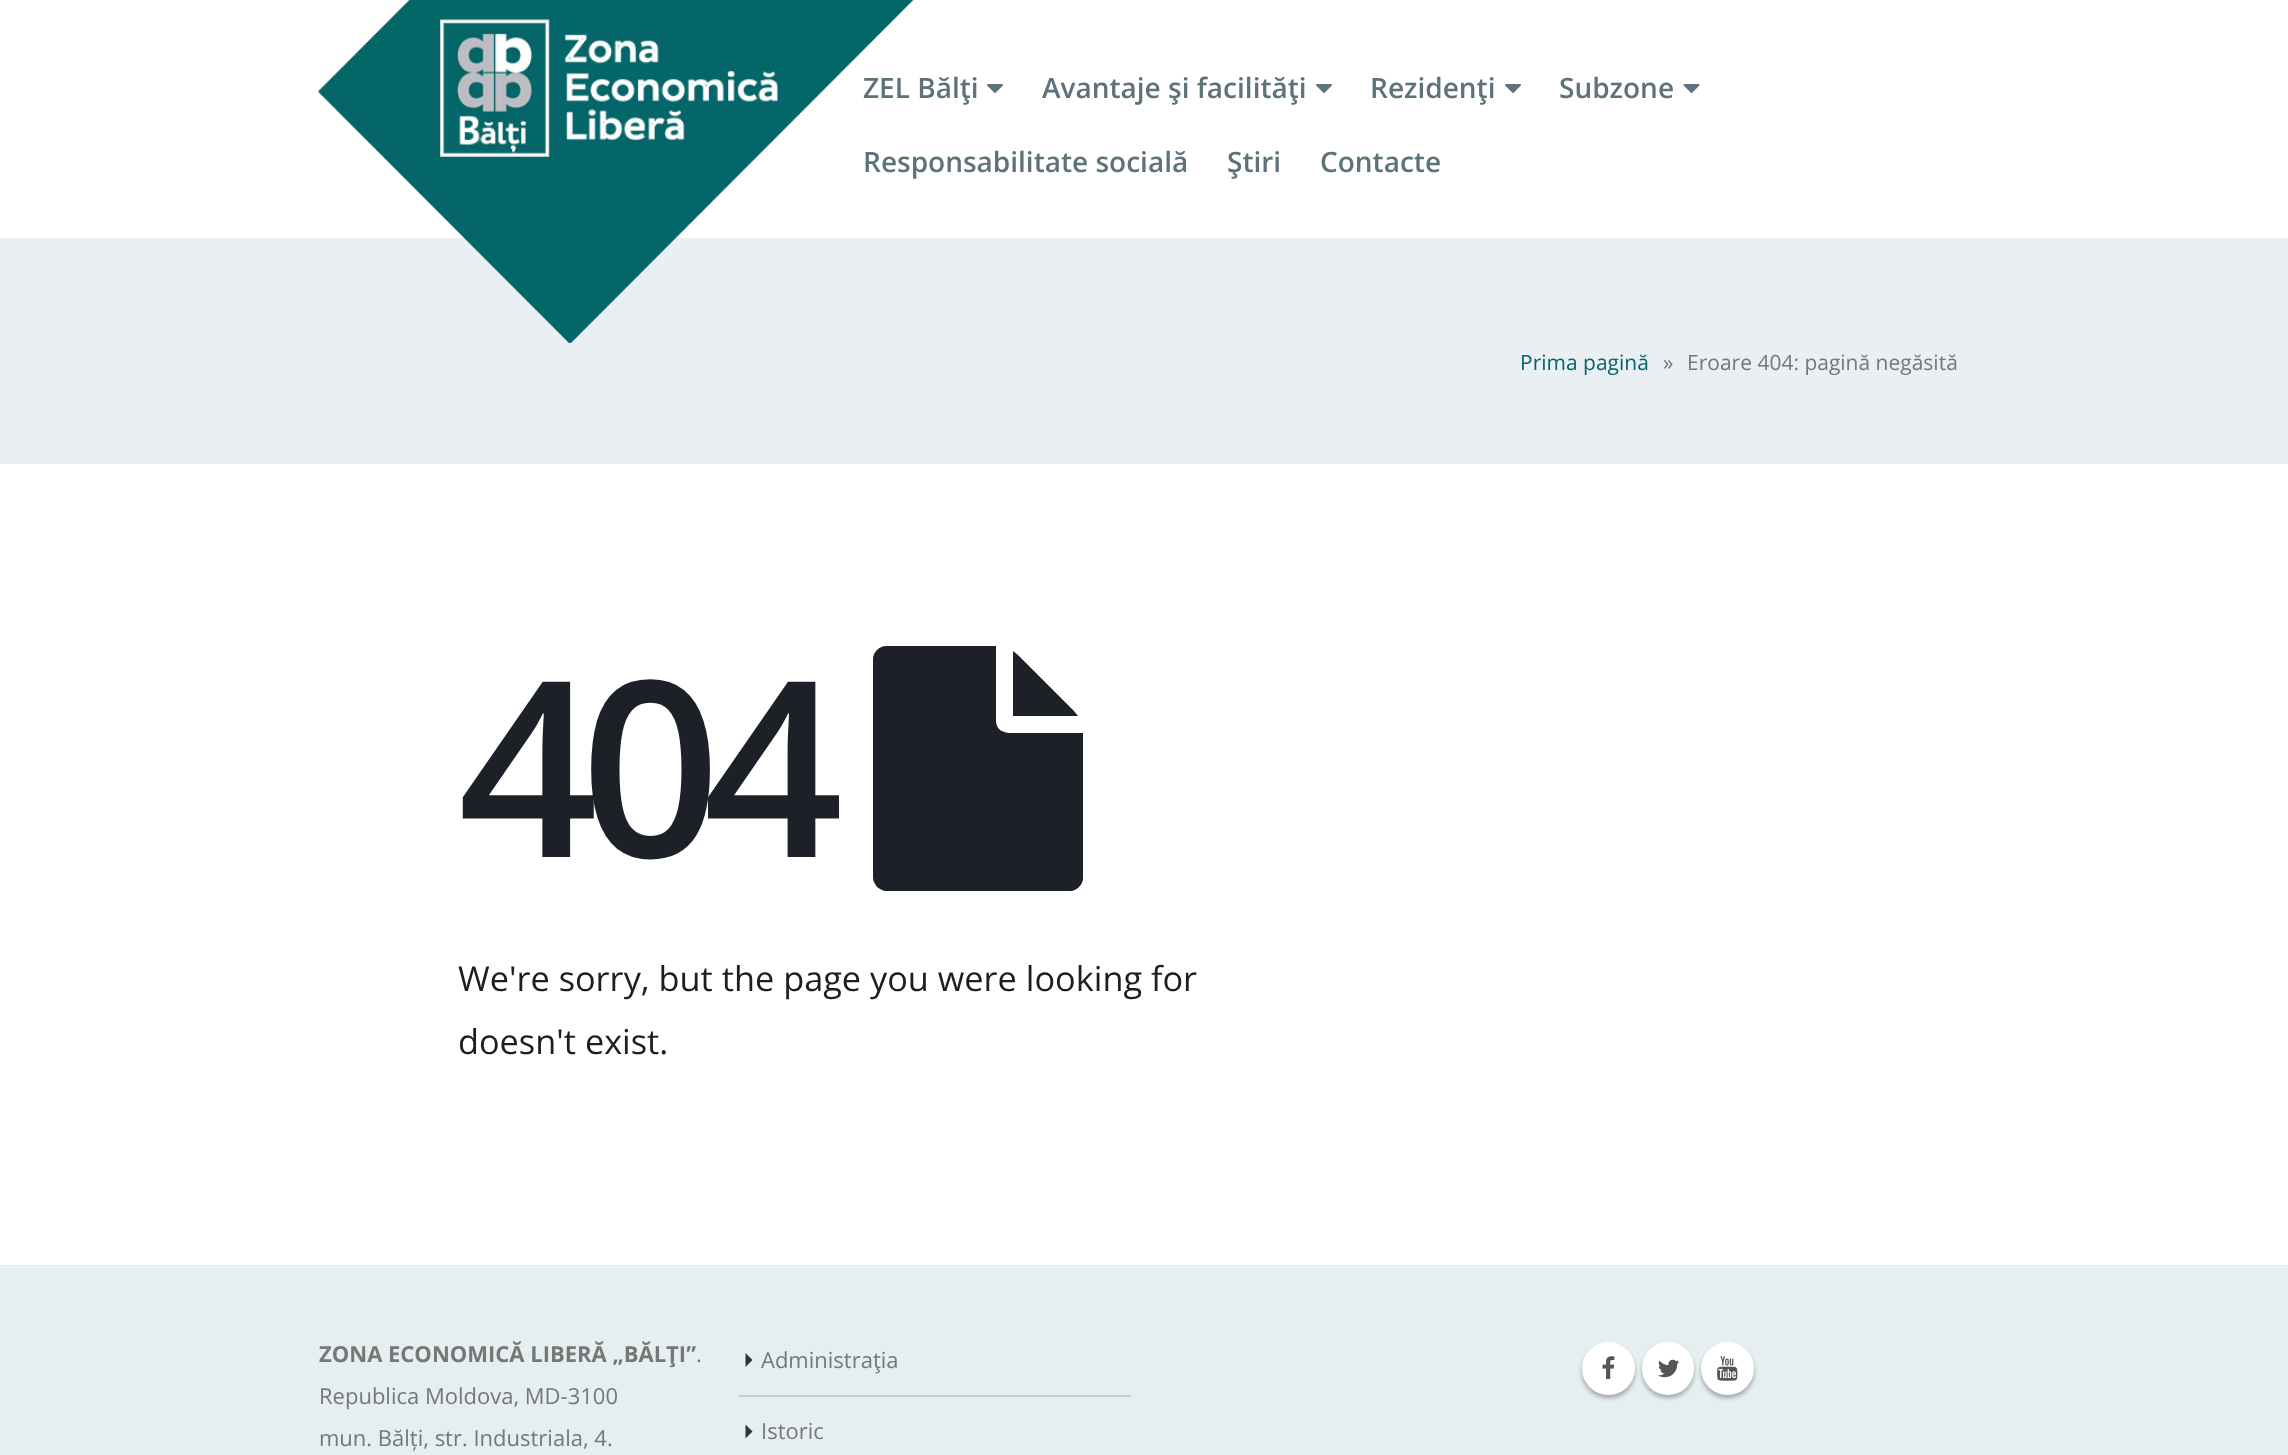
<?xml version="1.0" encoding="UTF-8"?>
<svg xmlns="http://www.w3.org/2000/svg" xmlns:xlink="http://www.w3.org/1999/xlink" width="2288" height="1455">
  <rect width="100%" height="100%" fill="#ffffff" />
  <rect y="238" width="2288" height="226" fill="#eaeff3" />
  <image x="318" y="0" width="596" height="343" xlink:href="image1.png" />
  <image x="987" y="84" width="16" height="9" xlink:href="image2.png" />
  <image x="1316" y="84" width="16" height="9" xlink:href="image2.png" />
  <image x="1505" y="84" width="16" height="9" xlink:href="image2.png" />
  <image x="1683" y="84" width="17" height="9" xlink:href="image3.png" />
  <path d="M 1013 716 v -65 l 5 4 l 56 56 l 4 5 z m -17 4 c 0 15 15 13 25 13 h 62 v 145 c 0 3 -1 6 -4 9 c -2 2 -5 4 -9 4 h -184 c -3 0 -6 -2 -9 -4 c -2 -3 -4 -6 -4 -9 v -219 c 0 -4 2 -7 4 -9 c 3 -3 6 -4 9 -4 h 110 z" fill="#1d2127" />
  <rect y="1265" width="2288" height="190" fill="#e5eff0" />
  <path d="M 745.5 1367 v -14 l 7 7 z" fill="#333333" />
  <rect x="739" y="1395" width="392" height="2" fill="#c4cbcc" />
  <path d="M 745.5 1438.5 v -14 l 7 7 z" fill="#333333" />
  <rect x="1582" y="1346" width="53" height="52" rx="26" fill="#000000" fill-opacity="0.3" filter="blur(2px)" />
  <circle cx="1608.5" cy="1368.5" r="26.5" fill="#ffffff" />
  <image x="1602" y="1356" width="13" height="23" xlink:href="image4.png" />
  <rect x="1642" y="1346" width="52" height="52" rx="26" fill="#000000" fill-opacity="0.3" filter="blur(2px)" />
  <rect x="1642" y="1342" width="52" height="53" rx="26" fill="#ffffff" />
  <image x="1658" y="1359" width="22" height="19" xlink:href="image5.png" />
  <rect x="1701" y="1346" width="53" height="52" rx="26" fill="#000000" fill-opacity="0.3" filter="blur(2px)" />
  <circle cx="1727.5" cy="1368.5" r="26.5" fill="#ffffff" />
  <image x="1717" y="1356" width="21" height="25" xlink:href="image6.png" />
  <text x="863" y="98" style="font-family: Open Sans; font-size: 28px; font-weight: 600; fill: #5e7279">ZEL Bălţi</text>
  <text x="1042" y="98" style="font-family: Open Sans; font-size: 28px; font-weight: 600; fill: #5e7279">Avantaje şi facilităţi</text>
  <text x="1370" y="98" style="font-family: Open Sans; font-size: 28px; font-weight: 600; fill: #5e7279">Rezidenţi</text>
  <text x="1559" y="98" style="font-family: Open Sans; font-size: 28px; font-weight: 600; fill: #5e7279">Subzone</text>
  <text x="863" y="172" style="font-family: Open Sans; font-size: 28px; font-weight: 600; fill: #5e7279">Responsabilitate socială</text>
  <text x="1227" y="172" style="font-family: Open Sans; font-size: 28px; font-weight: 600; fill: #5e7279">Ştiri</text>
  <text x="1320" y="172" style="font-family: Open Sans; font-size: 28px; font-weight: 600; fill: #5e7279">Contacte</text>
  <text x="1520" y="370" style="font-family: Open Sans; font-size: 21px; fill: #046669">Prima pagină</text>
  <text x="1663" y="370" style="font-family: Open Sans; font-size: 21px; fill: #777777">»</text>
  <text x="1687" y="370" style="font-family: Open Sans; font-size: 21px; fill: #777777">Eroare 404: pagină negăsită</text>
  <text x="458" y="857" style="font-family: Open Sans; font-size: 245px; font-weight: 600; letter-spacing: -17.5px; fill: #1d2127">404</text>
  <text x="458" y="991" style="font-family: Open Sans; font-size: 34.3px; fill: #1e1e1e">We're sorry, but the page you were looking for</text>
  <text x="458" y="1054" style="font-family: Open Sans; font-size: 34.3px; fill: #1e1e1e">doesn't exist.</text>
  <text x="319" y="1362" style="font-family: Open Sans; font-size: 22px; font-weight: bold; fill: #777777">ZONA ECONOMICĂ LIBERĂ „BĂLŢI”</text>
  <text x="696" y="1362" style="font-family: Open Sans; font-size: 22px; fill: #777777">.</text>
  <text x="319" y="1404" style="font-family: Open Sans; font-size: 22px; fill: #777777">Republica Moldova, MD-3100</text>
  <text x="319" y="1446" style="font-family: Open Sans; font-size: 22px; fill: #777777">mun. Bălți, str. Industriala, 4.</text>
  <text x="761" y="1368" style="font-family: Open Sans; font-size: 22px; fill: #777777">Administraţia</text>
  <text x="761" y="1439" style="font-family: Open Sans; font-size: 22px; fill: #777777">Istoric</text>
</svg>
